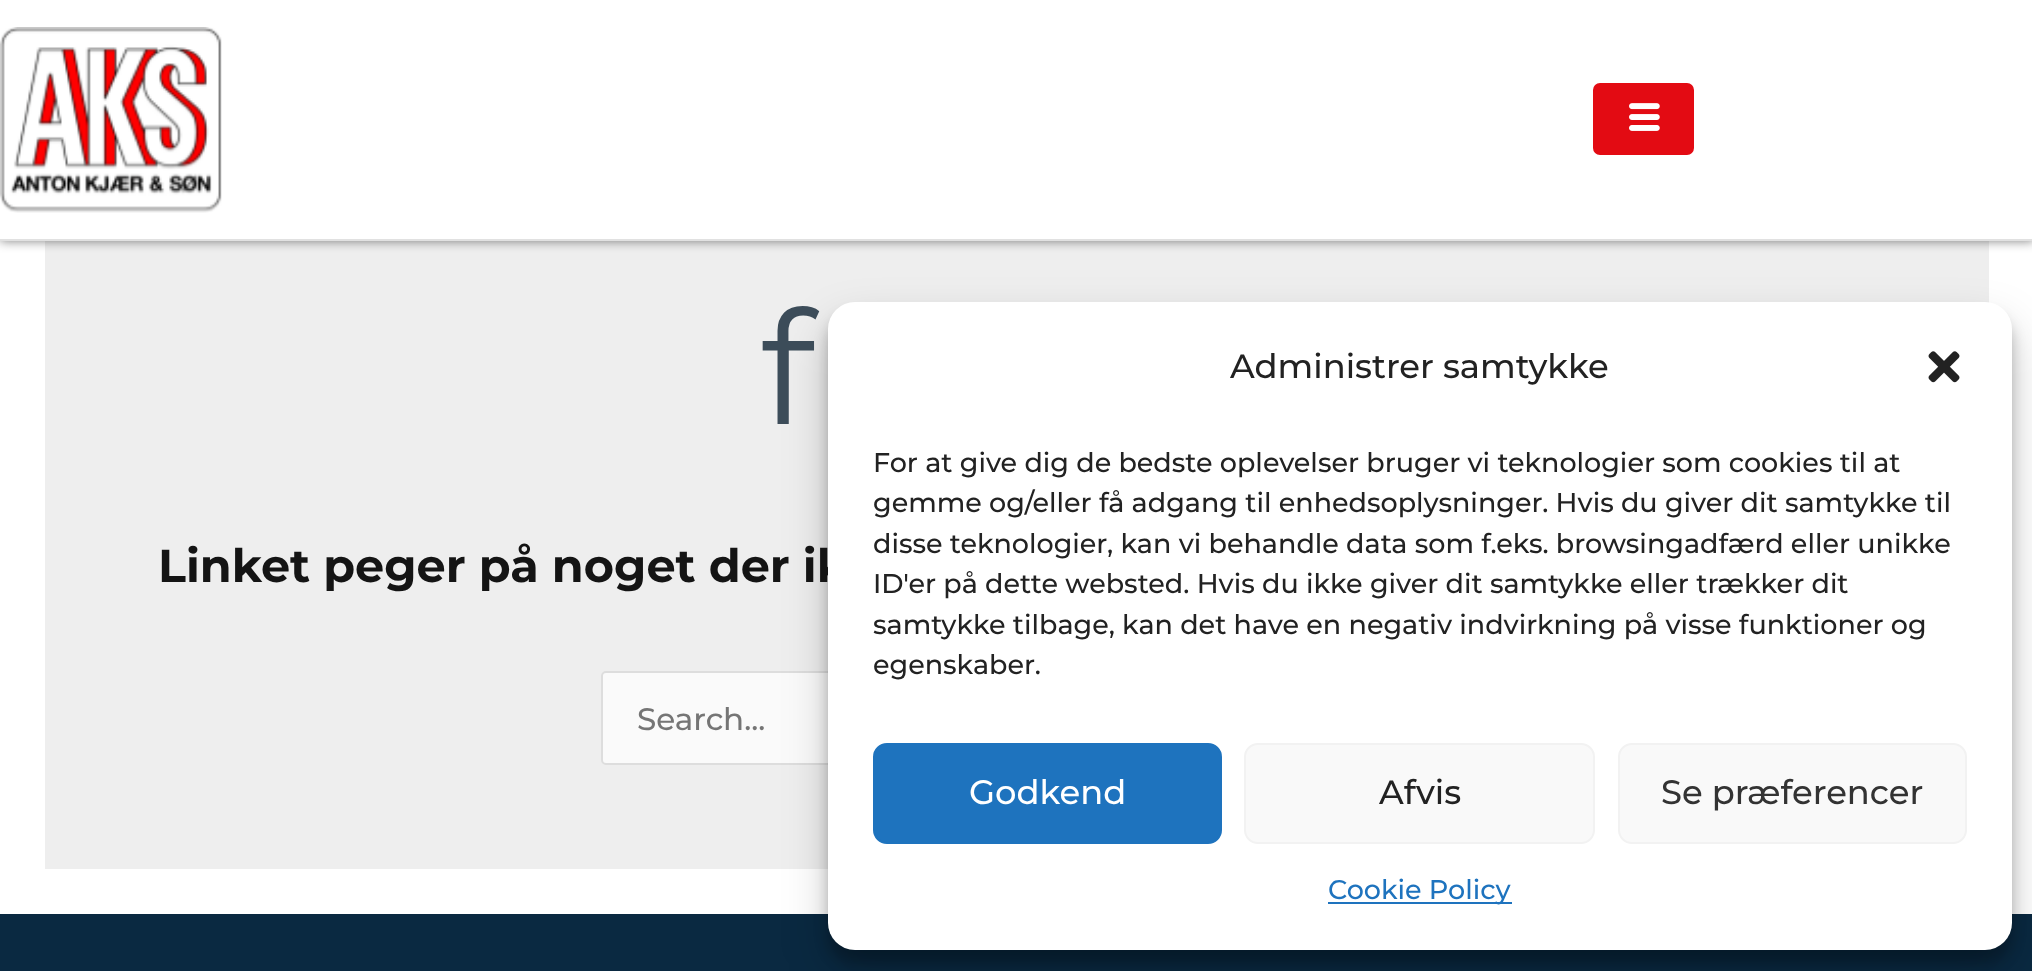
<?xml version="1.0" encoding="UTF-8"?>
<svg xmlns="http://www.w3.org/2000/svg" xmlns:xlink="http://www.w3.org/1999/xlink" width="2032" height="971">
  <rect width="100%" height="100%" fill="#ffffff" />
  <rect x="45" y="241" width="1944" height="628" fill="#eeeeee" />
  <rect width="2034" height="241" fill="#000000" fill-opacity="0.5" filter="blur(5.5px)" />
  <rect width="2032" height="239" fill="#ffffff" />
  <rect y="239" width="2032" height="2" fill="#e1e1e1" />
  <image x="0" y="27" width="222" height="186" xlink:href="image1.png" />
  <rect x="1594" y="84" width="99" height="70" rx="6" fill="#e30b13" stroke="#e30b13" stroke-width="2" />
  <image x="1629" y="103" width="31" height="28" xlink:href="image2.png" />
  <rect x="602" y="672" width="830" height="92" rx="4" fill="#fafafa" stroke="#dddddd" stroke-width="2" />
  <rect y="914" width="2032" height="57" fill="#0a2941" />
  <rect x="828" y="315" width="1184" height="648" rx="27" fill="#000000" fill-opacity="0.23" filter="blur(7px)" />
  <rect x="828" y="324" width="1184" height="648" rx="27" fill="#000000" fill-opacity="0.19" filter="blur(22.5px)" />
  <text x="760" y="424" style="font-family: Montserrat; font-size: 158px; fill: #3c4c59">f</text>
  <text x="158" y="582" style="font-family: Montserrat; font-size: 46.2px; font-weight: bold; fill: #141414">Linket peger på noget der ik</text>
  <text x="637" y="730" style="font-family: Montserrat; font-size: 31px; font-weight: 500; fill: #757575">Search...</text>
  <rect x="828" y="302" width="1184" height="648" rx="27" fill="#ffffff" />
  <text x="1230" y="378" style="font-family: Montserrat; font-size: 33.75px; font-weight: 500; fill: #222222">Administrer samtykke</text>
  <image x="1928" y="351" width="32" height="32" xlink:href="image3.png" />
  <text x="873" y="472" style="font-family: Montserrat; font-size: 27px; font-weight: 500; fill: #222222">For at give dig de bedste oplevelser bruger vi teknologier som cookies til at</text>
  <text x="873" y="512" style="font-family: Montserrat; font-size: 27px; font-weight: 500; fill: #222222">gemme og/eller få adgang til enhedsoplysninger. Hvis du giver dit samtykke til</text>
  <text x="873" y="553" style="font-family: Montserrat; font-size: 27px; font-weight: 500; fill: #222222">disse teknologier, kan vi behandle data som f.eks. browsingadfærd eller unikke</text>
  <text x="873" y="593" style="font-family: Montserrat; font-size: 27px; font-weight: 500; fill: #222222">ID'er på dette websted. Hvis du ikke giver dit samtykke eller trækker dit</text>
  <text x="873" y="634" style="font-family: Montserrat; font-size: 27px; font-weight: 500; fill: #222222">samtykke tilbage, kan det have en negativ indvirkning på visse funktioner og</text>
  <text x="873" y="674" style="font-family: Montserrat; font-size: 27px; font-weight: 500; fill: #222222">egenskaber.</text>
  <rect x="874" y="744" width="347" height="99" rx="13" fill="#1e73be" stroke="#1e73be" stroke-width="2" />
  <text x="969" y="804" style="font-family: Montserrat; font-size: 33.75px; font-weight: 500; fill: #ffffff">Godkend</text>
  <rect x="1245" y="744" width="349" height="99" rx="13" fill="#f9f9f9" stroke="#f2f2f2" stroke-width="2" />
  <text x="1379" y="804" style="font-family: Montserrat; font-size: 33.75px; font-weight: 500; fill: #222222">Afvis</text>
  <rect x="1619" y="744" width="347" height="99" rx="13" fill="#f9f9f9" stroke="#f2f2f2" stroke-width="2" />
  <text x="1661" y="804" style="font-family: Montserrat; font-size: 33.75px; font-weight: 500; fill: #333333">Se præferencer</text>
  <rect x="1328" y="902" width="184" height="2" fill="#1e73be" />
  <text x="1328" y="899" style="font-family: Montserrat; font-size: 27px; font-weight: 500; fill: #1e73be">Cookie Policy</text>
</svg>
